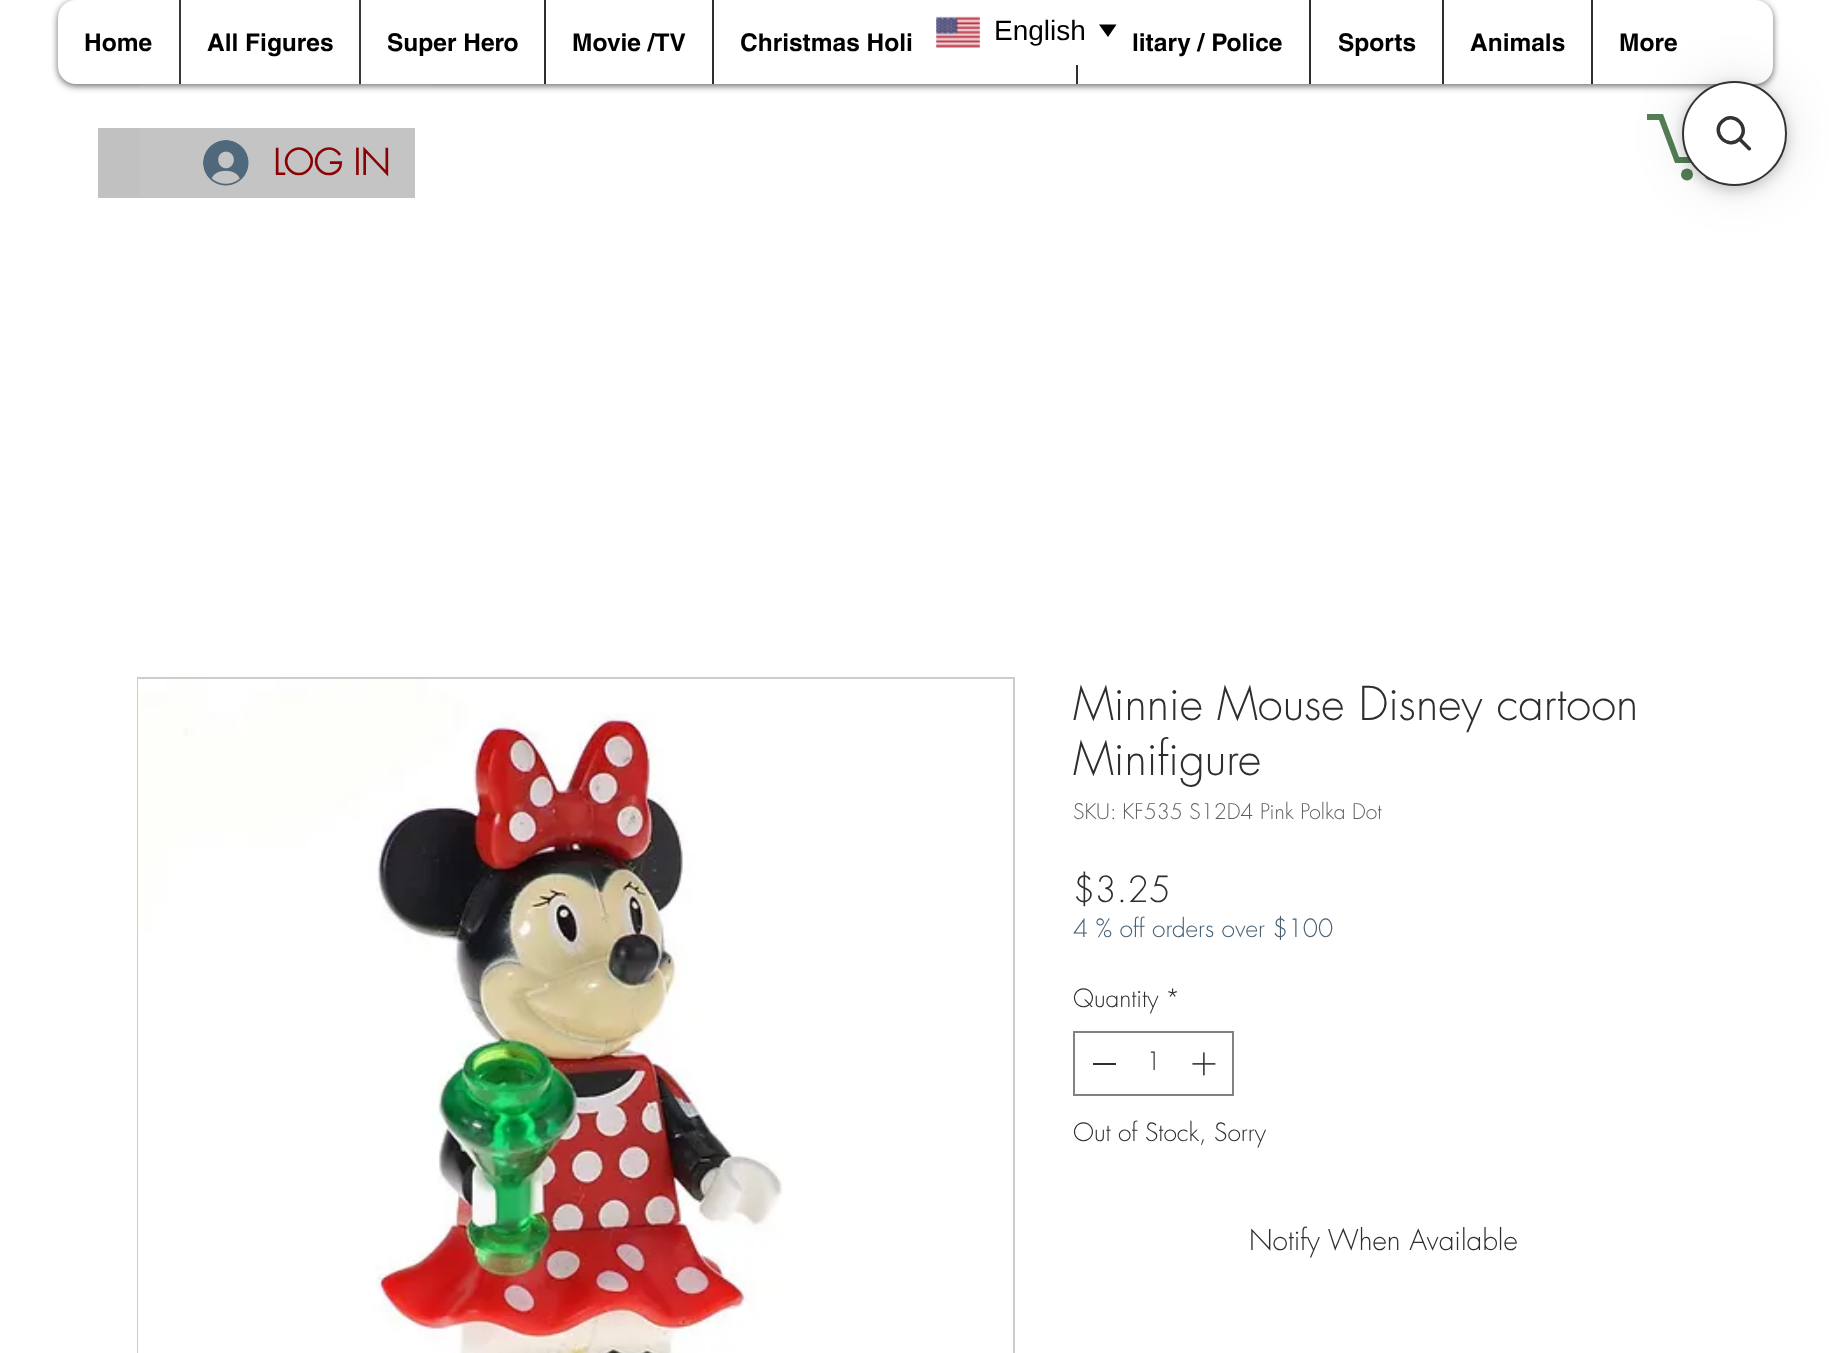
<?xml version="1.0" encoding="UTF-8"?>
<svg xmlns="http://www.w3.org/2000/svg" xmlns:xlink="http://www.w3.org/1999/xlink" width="1829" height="1353">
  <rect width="100%" height="100%" fill="#ffffff" />
  <rect x="58" y="2" width="1715" height="84" rx="18" fill="#000000" fill-opacity="0.6" filter="blur(3.5px)" />
  <rect x="58" width="1715" height="84" rx="18" fill="#ffffff" />
  <image x="936" y="16" width="44" height="32" xlink:href="image1.png" />
  <path d="M 1099 24.5 h 17.5 l -8.5 12.5 z" fill="#000000" />
  <path d="M 1734 131 l -12 32 h -47 l -16 -43 h -12 v -6 h 16 l 16 43 h 39 l 10 -26" fill="#547f55" />
  <circle cx="1710.5" cy="174.5" r="6" fill="#547f55" />
  <circle cx="1687" cy="174.5" r="6" fill="#547f55" />
  <rect x="1682" y="88" width="105" height="105" rx="52.5" fill="#000000" fill-opacity="0.05" filter="blur(7px)" />
  <rect x="1682" y="84" width="105" height="105" rx="52.5" fill="#000000" fill-opacity="0.15" filter="blur(7px)" />
  <rect x="1682" y="81" width="105" height="105" rx="52.5" fill="#000000" fill-opacity="0.1" filter="blur(26px)" />
  <circle cx="1734.5" cy="133.5" r="51.5" fill="#ffffff" stroke="#333333" stroke-width="2" />
  <path d="M 1722 121.5 c 11.5 -11.5 29 6 17.5 17.5 c -11.5 11.5 -29 -6 -17.5 -17.5 z" fill="none" stroke="#333333" stroke-width="3.5" />
  <path d="M 1738 140 l 2.5 -2.5 l 10.5 10.5 c 1 1.5 -1.5 3.5 -3 2 z" fill="#333333" />
  <rect x="179" width="2" height="84" fill="#2f2e2e" />
  <rect x="359" width="2" height="84" fill="#2f2e2e" />
  <rect x="98" y="128" width="317" height="70" fill="#c1c1c1" />
  <image x="203" y="140" width="46" height="46" xlink:href="image2.png" />
  <rect x="140" width="292" height="198" fill="#ffffff" fill-opacity="0.05" />
  <rect x="544" width="2" height="84" fill="#2f2e2e" />
  <rect x="712" width="2" height="84" fill="#2f2e2e" />
  <rect x="1076" y="65" width="2" height="19" fill="#2f2e2e" />
  <rect x="1309" width="2" height="84" fill="#2f2e2e" />
  <rect x="1442" width="2" height="84" fill="#2f2e2e" />
  <rect x="1591" width="2" height="84" fill="#2f2e2e" />
  <rect x="138" y="678" width="876" height="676" fill="none" stroke="#cccccc" stroke-width="2" />
  <image x="138" y="679" width="645" height="674" xlink:href="image3.png" />
  <rect x="1074" y="1032" width="159" height="63" fill="none" stroke="#828282" stroke-width="2" />
  <rect x="1093" y="1063" width="23" height="2" fill="#2f2e2e" />
  <image x="1192" y="1052" width="24" height="24" xlink:href="image4.png" />
  <text x="994" y="40" style="font-family: Liberation Sans; font-size: 28px; fill: #000000">English</text>
  <text x="84" y="51" style="font-family: helvetica; font-size: 24.5px; font-weight: bold; fill: #000000">Home</text>
  <text x="207" y="51" style="font-family: helvetica; font-size: 24.5px; font-weight: bold; fill: #000000">All Figures</text>
  <text x="387" y="51" style="font-family: helvetica; font-size: 24.5px; font-weight: bold; fill: #000000">Super Hero</text>
  <text x="572" y="51" style="font-family: helvetica; font-size: 24.5px; font-weight: bold; fill: #000000">Movie /TV</text>
  <text x="740" y="51" style="font-family: helvetica; font-size: 24.5px; font-weight: bold; fill: #000000">Christmas Holi</text>
  <text x="1132" y="51" style="font-family: helvetica; font-size: 24.5px; font-weight: bold; fill: #000000">litary / Police</text>
  <text x="1338" y="51" style="font-family: helvetica; font-size: 24.5px; font-weight: bold; fill: #000000">Sports</text>
  <text x="1470" y="51" style="font-family: helvetica; font-size: 24.5px; font-weight: bold; fill: #000000">Animals</text>
  <text x="1619" y="51" style="font-family: helvetica; font-size: 24.5px; font-weight: bold; fill: #000000">More</text>
  <text x="273" y="175" style="font-family: futura; font-size: 35px; font-weight: bold; fill: #8b0000">LOG IN</text>
  <text x="1073" y="720" style="font-family: futura; font-size: 45.5px; font-weight: 300; fill: #2f2e2e">Minnie Mouse Disney cartoon</text>
  <text x="1073" y="775" style="font-family: futura; font-size: 45.5px; font-weight: 300; fill: #2f2e2e">Minifigure</text>
  <text x="1073" y="819" style="font-family: futura; font-size: 21px; font-weight: 300; fill: #605e5e">SKU: KF535 S12D4 Pink Polka Dot</text>
  <text x="1073" y="902" style="font-family: futura; font-size: 35px; font-weight: 300; fill: #2f2e2e">$3.25</text>
  <text x="1073" y="937" style="font-family: futura; font-size: 24.5px; font-weight: 300; fill: #476074">4 % off orders over $100</text>
  <text x="1073" y="1007" style="font-family: futura; font-size: 24.5px; font-weight: 300; fill: #2f2e2e">Quantity</text>
  <text x="1165" y="1007" style="font-family: futura; font-size: 24.5px; font-weight: 300; fill: #2f2e2e">*</text>
  <text x="1146" y="1070" style="font-family: futura; font-size: 24.5px; font-weight: 300; fill: #2f2e2e">1</text>
  <text x="1073" y="1141" style="font-family: futura; font-size: 24.5px; font-weight: 300; fill: #2f2e2e">Out of Stock, Sorry</text>
  <text x="1249" y="1250" style="font-family: futura; font-size: 28px; font-weight: 300; fill: #2f2e2e">Notify When Available</text>
</svg>
